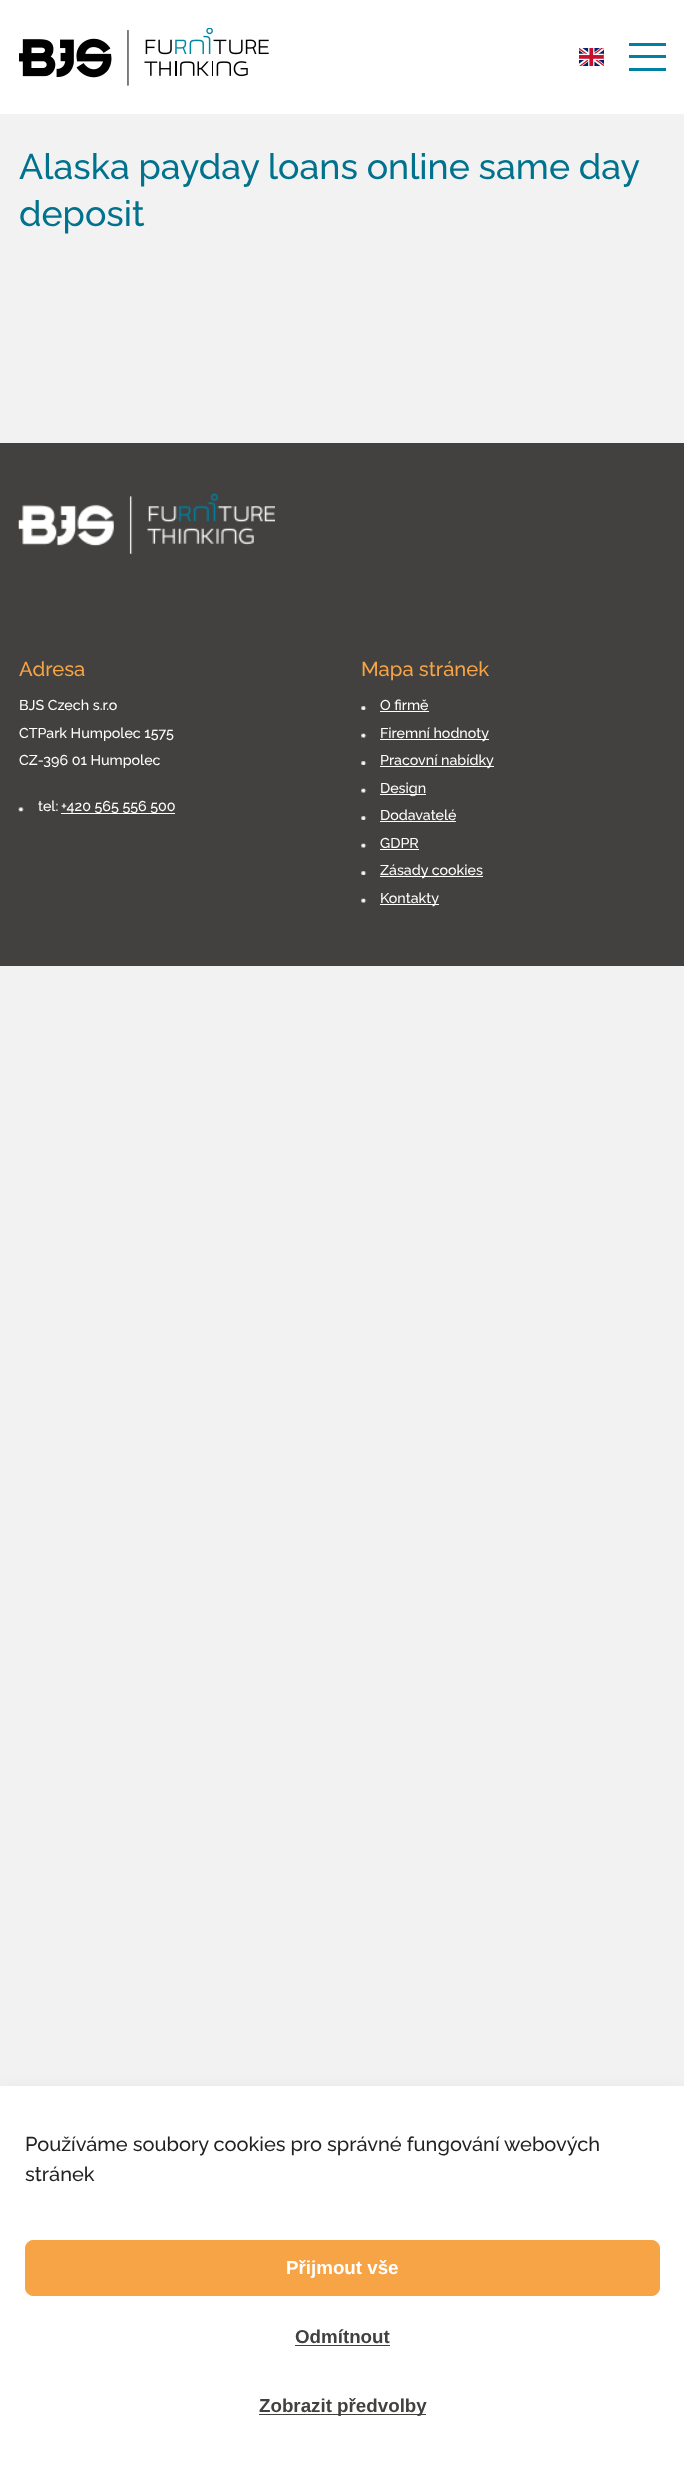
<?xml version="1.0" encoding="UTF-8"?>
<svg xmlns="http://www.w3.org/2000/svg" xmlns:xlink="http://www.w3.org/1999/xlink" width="684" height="2471">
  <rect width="100%" height="100%" fill="#f2f2f2" />
  <rect width="684" height="114" fill="#ffffff" />
  <image x="19" y="28" width="250" height="58" xlink:href="image1.png" />
  <image x="579" y="48" width="25" height="18" xlink:href="image2.png" />
  <rect x="629" y="43" width="37" height="3" fill="#0081a1" />
  <rect x="629" y="55" width="37" height="3" fill="#0081a1" />
  <rect x="629" y="68" width="37" height="3" fill="#0081a1" />
  <rect y="443" width="684" height="523" fill="#42413f" />
  <image x="18" y="493" width="257" height="61" xlink:href="image3.png" />
  <image x="18" y="807" width="6" height="5" xlink:href="image4.png" />
  <rect x="61" y="813" width="114" height="1" fill="#ffffff" />
  <image x="361" y="706" width="6" height="4" xlink:href="image5.png" />
  <rect x="380" y="711" width="49" height="1" fill="#ffffff" />
  <image x="361" y="733" width="6" height="5" xlink:href="image6.png" />
  <rect x="380" y="739" width="109" height="1" fill="#ffffff" />
  <image x="361" y="761" width="6" height="4" xlink:href="image5.png" />
  <rect x="380" y="766" width="114" height="1" fill="#ffffff" />
  <image x="361" y="788" width="6" height="5" xlink:href="image6.png" />
  <rect x="380" y="794" width="46" height="1" fill="#ffffff" />
  <image x="361" y="816" width="6" height="4" xlink:href="image5.png" />
  <rect x="380" y="821" width="76" height="1" fill="#ffffff" />
  <image x="361" y="843" width="6" height="5" xlink:href="image6.png" />
  <rect x="380" y="849" width="39" height="1" fill="#ffffff" />
  <image x="361" y="871" width="6" height="4" xlink:href="image5.png" />
  <rect x="380" y="876" width="103" height="1" fill="#ffffff" />
  <image x="361" y="898" width="6" height="5" xlink:href="image6.png" />
  <rect x="380" y="904" width="59" height="1" fill="#ffffff" />
  <rect y="2099" width="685" height="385" fill="#000000" fill-opacity="0.19" filter="blur(12.5px)" />
  <rect y="2086" width="684" height="385" fill="#ffffff" />
  <rect x="25.5" y="2240.5" width="634" height="55" rx="7.5" fill="#f6a445" stroke="#f6a445" />
  <rect x="295" y="2345" width="95" height="1" fill="#42413f" />
  <rect x="259" y="2414" width="167" height="1" fill="#42413f" />
  <text x="19" y="179" word-spacing="-0.25" style="font-family: Raleway; font-size: 35.75px; font-weight: 500; fill: #00728e">Alaska payday loans online same day</text>
  <text x="19" y="226" style="font-family: Raleway; font-size: 35.75px; font-weight: 500; fill: #00728e">deposit</text>
  <text x="19" y="676" style="font-family: Raleway; font-size: 20.25px; font-weight: 500; fill: #f6a445">Adresa</text>
  <text x="19" y="710" style="font-family: Raleway; font-size: 14.25px; font-weight: 500; fill: #ffffff">BJS Czech s.r.o</text>
  <text x="19" y="738" style="font-family: Raleway; font-size: 14.25px; font-weight: 500; fill: #ffffff">CTPark Humpolec 1575</text>
  <text x="19" y="765" style="font-family: Raleway; font-size: 14.25px; font-weight: 500; fill: #ffffff">CZ-396 01 Humpolec</text>
  <text x="38" y="811" style="font-family: Raleway; font-size: 14.25px; font-weight: 500; fill: #ffffff">tel:</text>
  <text x="61" y="811" style="font-family: Raleway; font-size: 14.25px; font-weight: 500; fill: #ffffff">+420 565 556 500</text>
  <text x="361" y="676" style="font-family: Raleway; font-size: 20.25px; font-weight: 500; fill: #f6a445">Mapa stránek</text>
  <text x="380" y="710" style="font-family: Raleway; font-size: 14.25px; font-weight: 500; fill: #ffffff">O firmě</text>
  <text x="380" y="738" style="font-family: Raleway; font-size: 14.25px; font-weight: 500; fill: #ffffff">Firemní hodnoty</text>
  <text x="380" y="765" style="font-family: Raleway; font-size: 14.25px; font-weight: 500; fill: #ffffff">Pracovní nabídky</text>
  <text x="380" y="793" style="font-family: Raleway; font-size: 14.25px; font-weight: 500; fill: #ffffff">Design</text>
  <text x="380" y="820" style="font-family: Raleway; font-size: 14.25px; font-weight: 500; fill: #ffffff">Dodavatelé</text>
  <text x="380" y="848" style="font-family: Raleway; font-size: 14.25px; font-weight: 500; fill: #ffffff">GDPR</text>
  <text x="380" y="875" style="font-family: Raleway; font-size: 14.25px; font-weight: 500; fill: #ffffff">Zásady cookies</text>
  <text x="380" y="903" style="font-family: Raleway; font-size: 14.25px; font-weight: 500; fill: #ffffff">Kontakty</text>
  <text x="25" y="2151" style="font-family: Raleway; font-size: 20px; font-weight: 500; fill: #222222">Používáme soubory cookies pro správné fungování webových</text>
  <text x="25" y="2181" style="font-family: Raleway; font-size: 20px; font-weight: 500; fill: #222222">stránek</text>
  <text x="286" y="2274" style="font-family: Liberation Sans; font-size: 18.75px; font-weight: bold; fill: #ffffff">Přijmout vše</text>
  <text x="295" y="2343" style="font-family: Liberation Sans; font-size: 18.75px; font-weight: bold; fill: #42413f">Odmítnout</text>
  <text x="259" y="2412" style="font-family: Liberation Sans; font-size: 18.75px; font-weight: bold; fill: #42413f">Zobrazit předvolby</text>
</svg>
